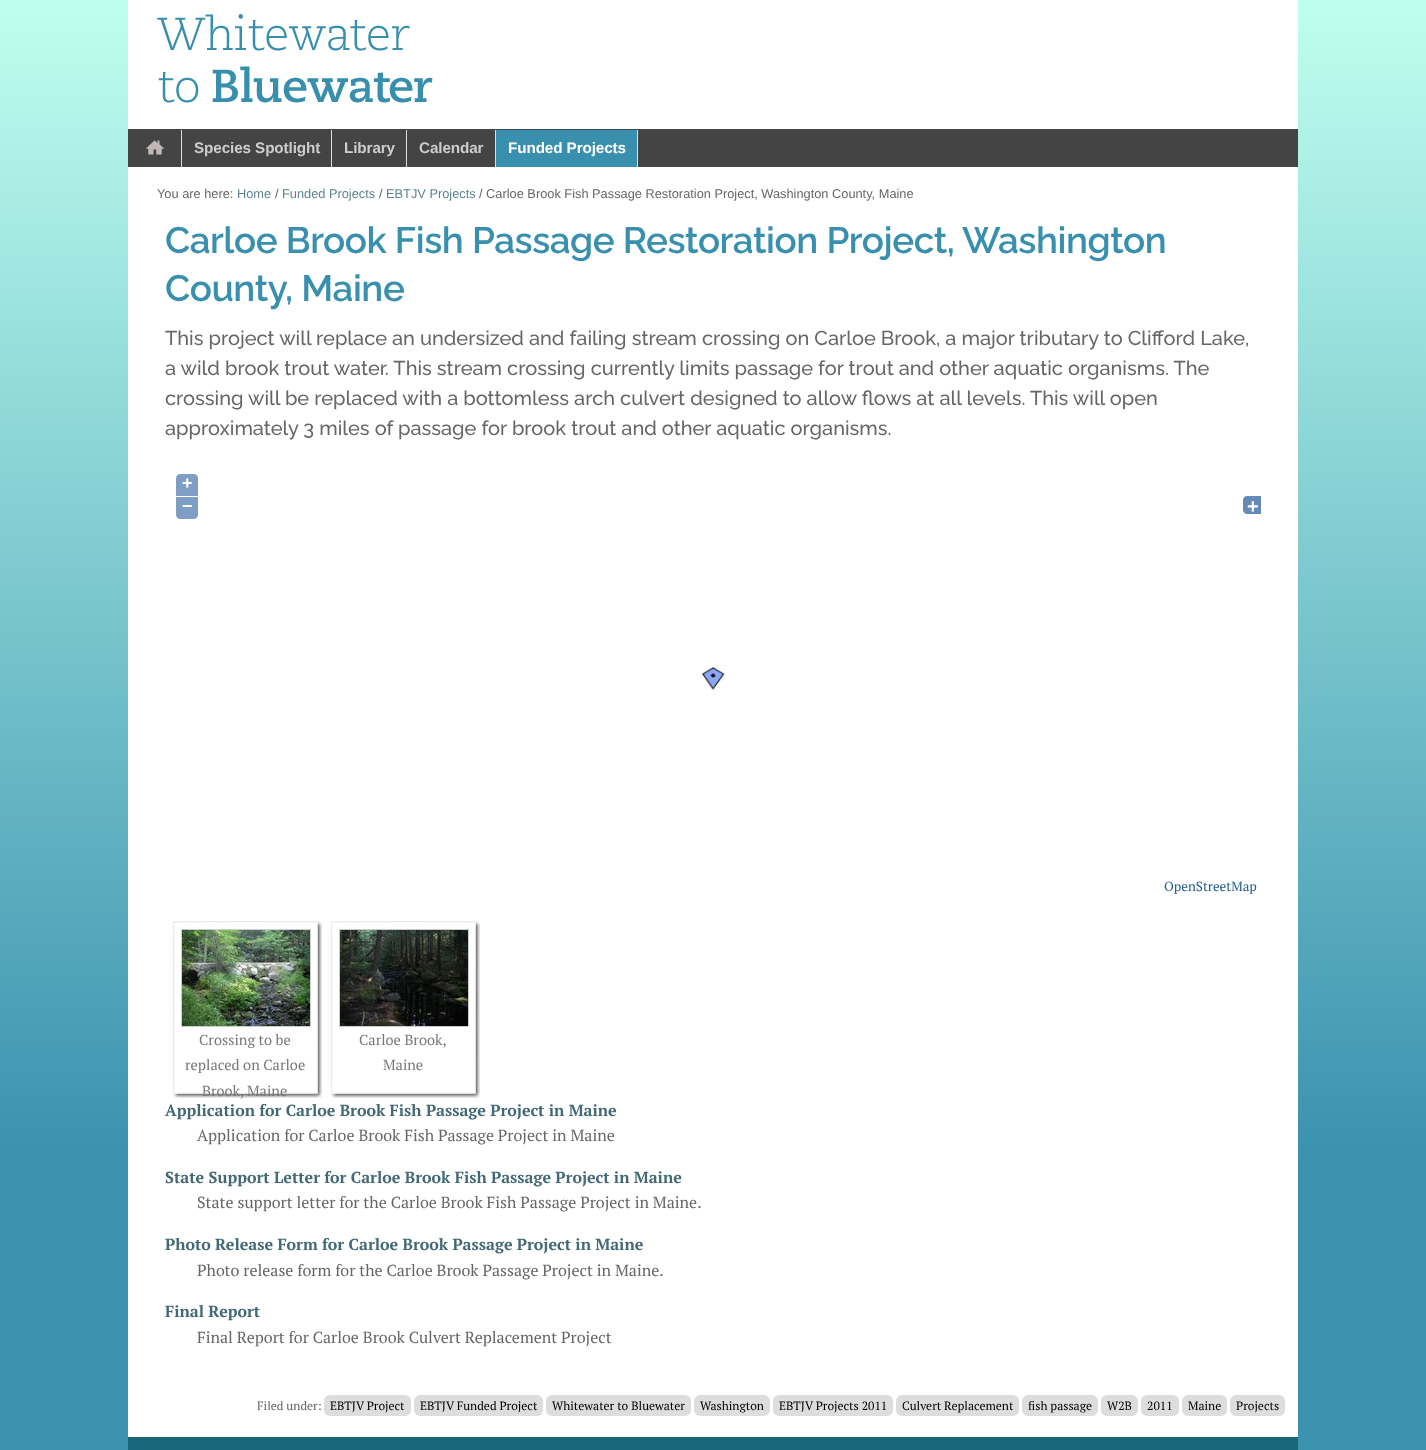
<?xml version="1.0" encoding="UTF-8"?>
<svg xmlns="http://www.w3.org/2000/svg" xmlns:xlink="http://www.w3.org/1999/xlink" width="1426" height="1450">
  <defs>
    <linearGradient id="g1" gradientUnits="userSpaceOnUse" x1="713" y1="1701" x2="713" y2="0"><stop offset="0.32" stop-color="#3b92af" /><stop offset="1" stop-color="#bfffef" /></linearGradient>
  </defs>
  <rect width="100%" height="100%" fill="#ffffff" />
  <rect width="1426" height="1450" fill="url(#g1)" />
  <rect x="128" y="167" width="1170" height="1270" fill="#ffffff" />
  <rect x="128" width="1170" height="129" fill="#ffffff" />
  <image x="157" y="14" width="276" height="89" xlink:href="image1.png" />
  <rect x="128" y="129" width="1170" height="38" fill="#444444" />
  <image x="146" y="140" width="19" height="15" xlink:href="image2.png" />
  <rect x="181" y="130" width="1" height="37" fill="#dddddd" />
  <rect x="331" y="130" width="1" height="37" fill="#dddddd" />
  <rect x="406" y="130" width="1" height="37" fill="#dddddd" />
  <rect x="495" y="130" width="1" height="37" fill="#dddddd" />
  <rect x="496" y="130" width="141" height="37" fill="#3990ae" />
  <rect x="637" y="130" width="1" height="37" fill="#dddddd" />
  <path d="M 180 474 h 14 c 2 0 4 2 4 4 v 18 h -22 v -18 c 0 -2 2 -4 4 -4 z" fill="#809ec4" />
  <path d="M 176 497 h 22 v 18 c 0 2 -2 4 -4 4 h -14 c -2 0 -4 -2 -4 -4 z" fill="#809ec4" />
  <path d="M 1247 496 h 14 v 18 h -14 c -2 0 -4 -2 -4 -4 v -10 c 0 -2 2 -4 4 -4 z" fill="#668ab8" />
  <image x="702" y="667" width="23" height="23" xlink:href="image3.png" />
  <image x="173" y="921" width="149" height="177" xlink:href="image4.png" />
  <rect x="181.5" y="929.5" width="129" height="97" fill="none" stroke="#cccccc" />
  <image x="182" y="930" width="128" height="96" xlink:href="image5.png" />
  <image x="331" y="921" width="149" height="177" xlink:href="image4.png" />
  <rect x="339.5" y="929.5" width="129" height="97" fill="none" stroke="#cccccc" />
  <image x="340" y="930" width="128" height="96" xlink:href="image6.png" />
  <rect x="324" y="1395" width="87" height="21" rx="6" fill="#dddddd" />
  <rect x="414" y="1395" width="129" height="21" rx="6" fill="#dddddd" />
  <rect x="546" y="1395" width="145" height="21" rx="6" fill="#dddddd" />
  <rect x="694" y="1395" width="76" height="21" rx="6" fill="#dddddd" />
  <rect x="773" y="1395" width="120" height="21" rx="6" fill="#dddddd" />
  <rect x="896" y="1395" width="123" height="21" rx="6" fill="#dddddd" />
  <rect x="1022" y="1395" width="76" height="21" rx="6" fill="#dddddd" />
  <rect x="1101" y="1395" width="37" height="21" rx="6" fill="#dddddd" />
  <rect x="1141" y="1395" width="38" height="21" rx="6" fill="#dddddd" />
  <rect x="1182" y="1395" width="45" height="21" rx="6" fill="#dddddd" />
  <rect x="1230" y="1395" width="55" height="21" rx="6" fill="#dddddd" />
  <rect x="128" y="1437" width="1170" height="13" fill="#196678" />
  <text x="194" y="153" style="font-family: Liberation Sans; font-size: 15.25px; font-weight: bold; letter-spacing: -0.1px; fill: #cdcdcd">Species Spotlight</text>
  <text x="344" y="153" style="font-family: Liberation Sans; font-size: 15.25px; font-weight: bold; letter-spacing: -0.1px; fill: #cdcdcd">Library</text>
  <text x="419" y="153" style="font-family: Liberation Sans; font-size: 15.25px; font-weight: bold; letter-spacing: -0.1px; fill: #cdcdcd">Calendar</text>
  <text x="508" y="153" style="font-family: Liberation Sans; font-size: 15.25px; font-weight: bold; letter-spacing: -0.1px; fill: #ffffff">Funded Projects</text>
  <text x="157" y="198" style="font-family: Liberation Sans; font-size: 12.8px; fill: #666666">You are here:</text>
  <text x="237" y="198" style="font-family: Liberation Sans; font-size: 12.8px; fill: #5d848d">Home</text>
  <text x="275" y="198" style="font-family: Liberation Sans; font-size: 12.8px; fill: #666666">/</text>
  <text x="282" y="198" style="font-family: Liberation Sans; font-size: 12.8px; fill: #5d848d">Funded Projects</text>
  <text x="379" y="198" style="font-family: Liberation Sans; font-size: 12.8px; fill: #666666">/</text>
  <text x="386" y="198" style="font-family: Liberation Sans; font-size: 12.8px; fill: #5d848d">EBTJV Projects</text>
  <text x="479" y="198" style="font-family: Liberation Sans; font-size: 12.8px; fill: #666666">/ Carloe Brook Fish Passage Restoration Project, Washington County, Maine</text>
  <text x="165" y="253" style="font-family: Raleway; font-size: 36.8px; font-weight: 600; letter-spacing: -0.45px; fill: #3990ae">Carloe Brook Fish Passage Restoration Project, Washington</text>
  <text x="165" y="301" style="font-family: Raleway; font-size: 36.8px; font-weight: 600; letter-spacing: -0.45px; fill: #3990ae">County, Maine</text>
  <text x="165" y="345" style="font-family: Raleway; font-size: 20px; font-weight: 500; fill: #666666">This project will replace an undersized and failing stream crossing on Carloe Brook, a major tributary to Clifford Lake,</text>
  <text x="165" y="375" style="font-family: Raleway; font-size: 20px; font-weight: 500; fill: #666666">a wild brook trout water. This stream crossing currently limits passage for trout and other aquatic organisms. The</text>
  <text x="165" y="405" style="font-family: Raleway; font-size: 20px; font-weight: 500; fill: #666666">crossing will be replaced with a bottomless arch culvert designed to allow flows at all levels. This will open</text>
  <text x="165" y="435" style="font-family: Raleway; font-size: 20px; font-weight: 500; fill: #666666">approximately 3 miles of passage for brook trout and other aquatic organisms.</text>
  <text x="182" y="489" style="font-family: Liberation Sans; font-size: 18px; font-weight: bold; fill: #ffffff">+</text>
  <text x="182" y="512" style="font-family: Liberation Sans; font-size: 18px; font-weight: bold; fill: #ffffff">−</text>
  <text x="1247" y="513" style="font-family: Liberation Sans; font-size: 20px; font-weight: bold; fill: #ffffff">+</text>
  <text x="1164" y="891" style="font-family: PT Serif; font-size: 13.25px; fill: #205c90">OpenStreetMap</text>
  <text x="199" y="1045" style="font-family: PT Serif; font-size: 14.5px; fill: #76797c">Crossing to be</text>
  <text x="185" y="1070" style="font-family: PT Serif; font-size: 14.5px; fill: #76797c">replaced on Carloe</text>
  <text x="202" y="1096" style="font-family: PT Serif; font-size: 14.5px; fill: #76797c">Brook, Maine</text>
  <text x="359" y="1045" style="font-family: PT Serif; font-size: 14.5px; fill: #76797c">Carloe Brook,</text>
  <text x="383" y="1070" style="font-family: PT Serif; font-size: 14.5px; fill: #76797c">Maine</text>
  <text x="165" y="1116" style="font-family: PT Serif; font-size: 16px; font-weight: bold; fill: #436976">Application for Carloe Brook Fish Passage Project in Maine</text>
  <text x="197" y="1141" style="font-family: PT Serif; font-size: 16px; fill: #666666">Application for Carloe Brook Fish Passage Project in Maine</text>
  <text x="165" y="1183" style="font-family: PT Serif; font-size: 16px; font-weight: bold; fill: #436976">State Support Letter for Carloe Brook Fish Passage Project in Maine</text>
  <text x="197" y="1208" style="font-family: PT Serif; font-size: 16px; fill: #666666">State support letter for the Carloe Brook Fish Passage Project in Maine.</text>
  <text x="165" y="1250" style="font-family: PT Serif; font-size: 16px; font-weight: bold; fill: #436976">Photo Release Form for Carloe Brook Passage Project in Maine</text>
  <text x="197" y="1276" style="font-family: PT Serif; font-size: 16px; fill: #666666">Photo release form for the Carloe Brook Passage Project in Maine.</text>
  <text x="165" y="1317" style="font-family: PT Serif; font-size: 16px; font-weight: bold; fill: #436976">Final Report</text>
  <text x="197" y="1343" style="font-family: PT Serif; font-size: 16px; fill: #666666">Final Report for Carloe Brook Culvert Replacement Project</text>
  <text x="257" y="1410" style="font-family: PT Serif; font-size: 12px; fill: #666666">Filed under:</text>
  <text x="330" y="1410" style="font-family: PT Serif; font-size: 12px; fill: #000000">EBTJV Project</text>
  <text x="420" y="1410" style="font-family: PT Serif; font-size: 12px; fill: #000000">EBTJV Funded Project</text>
  <text x="552" y="1410" style="font-family: PT Serif; font-size: 12px; fill: #000000">Whitewater to Bluewater</text>
  <text x="700" y="1410" style="font-family: PT Serif; font-size: 12px; fill: #000000">Washington</text>
  <text x="779" y="1410" style="font-family: PT Serif; font-size: 12px; fill: #000000">EBTJV Projects 2011</text>
  <text x="902" y="1410" style="font-family: PT Serif; font-size: 12px; fill: #000000">Culvert Replacement</text>
  <text x="1028" y="1410" style="font-family: PT Serif; font-size: 12px; fill: #000000">fish passage</text>
  <text x="1107" y="1410" style="font-family: PT Serif; font-size: 12px; fill: #000000">W2B</text>
  <text x="1147" y="1410" style="font-family: PT Serif; font-size: 12px; fill: #000000">2011</text>
  <text x="1188" y="1410" style="font-family: PT Serif; font-size: 12px; fill: #000000">Maine</text>
  <text x="1236" y="1410" style="font-family: PT Serif; font-size: 12px; fill: #000000">Projects</text>
</svg>
